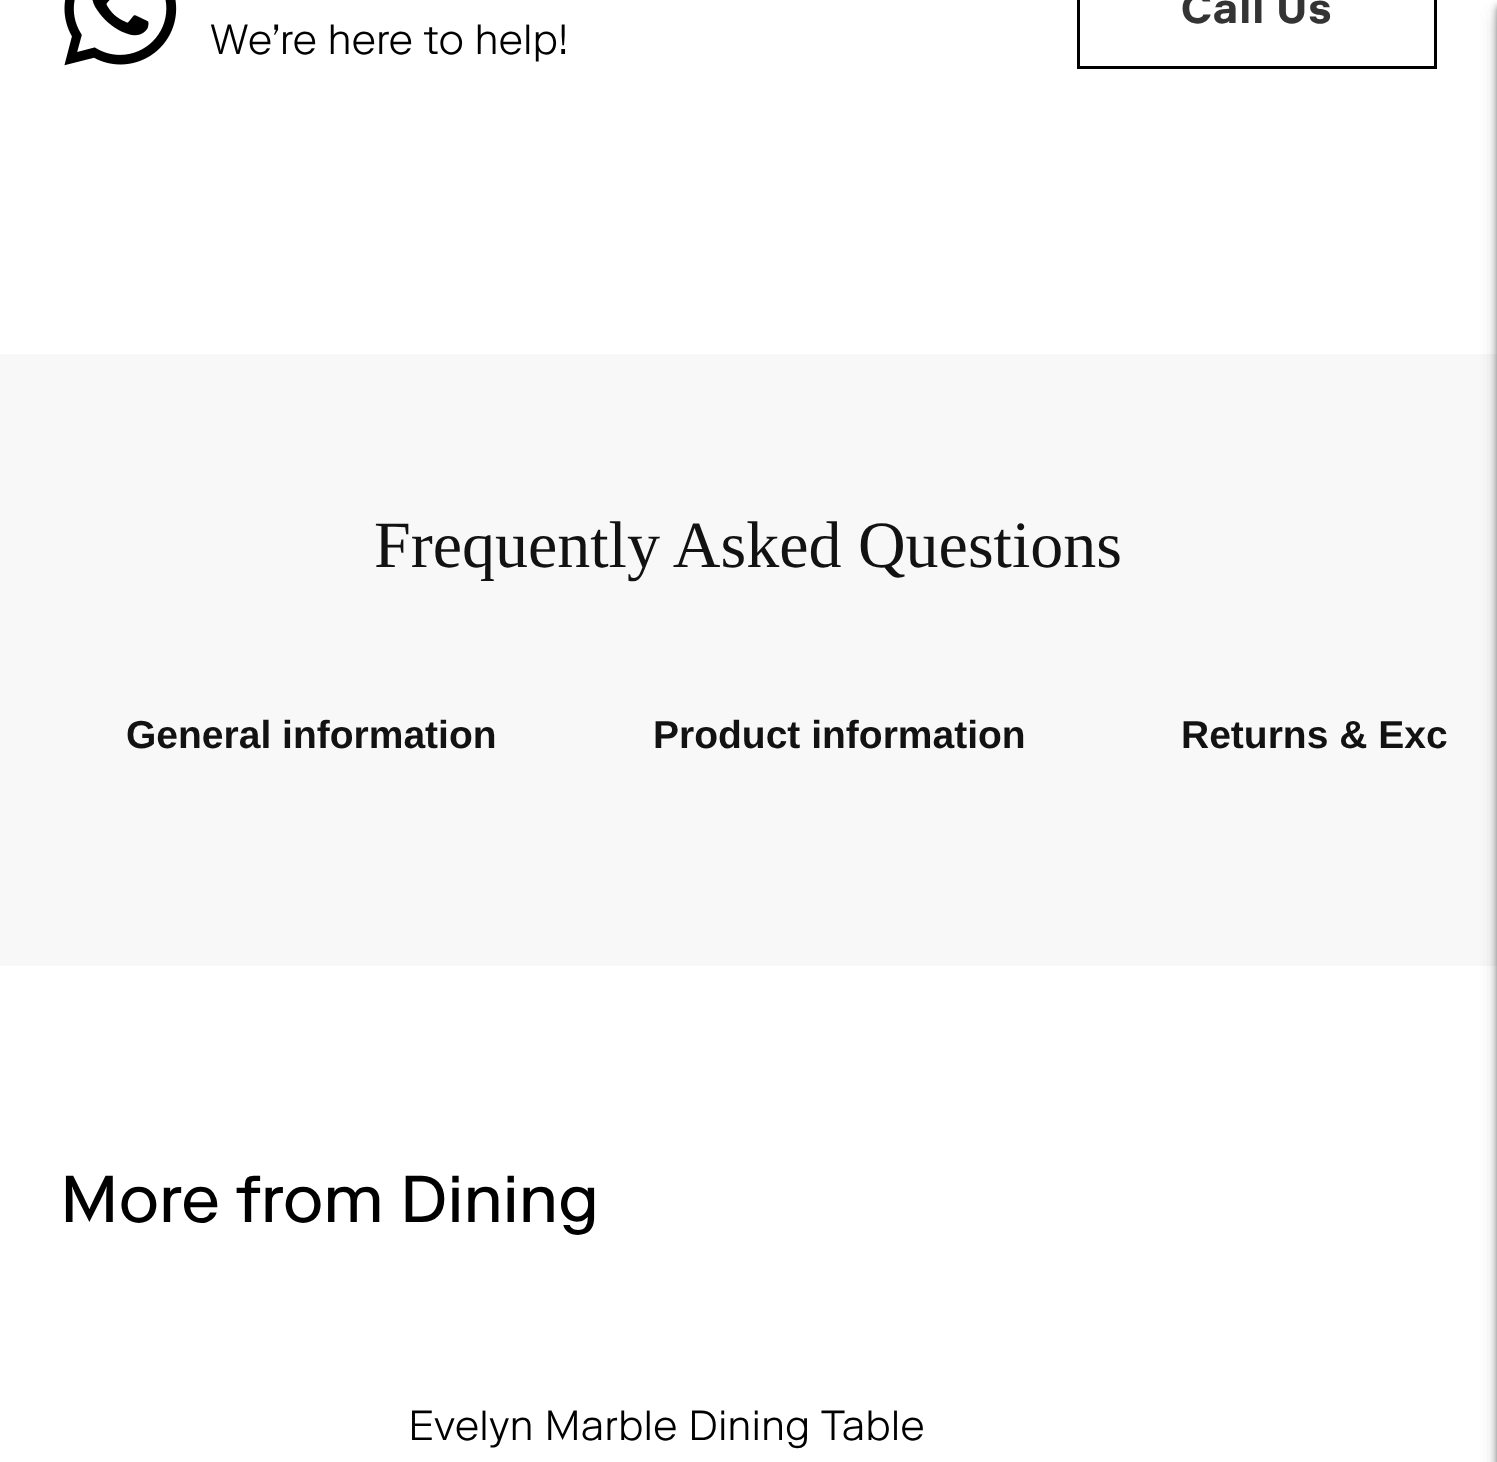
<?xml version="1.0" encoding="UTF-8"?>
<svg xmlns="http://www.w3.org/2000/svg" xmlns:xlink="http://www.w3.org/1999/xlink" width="1497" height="1462">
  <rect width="100%" height="100%" fill="#ffffff" />
  <rect x="1078.5" y="-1.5" width="357" height="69" fill="none" stroke="#000000" stroke-width="3" />
  <image x="64" y="0" width="113" height="66" xlink:href="image1.png" />
  <rect y="354" width="1497" height="612" fill="#f8f8f8" />
  <rect x="1497" y="12" width="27" height="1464" fill="#000000" fill-opacity="0.1" filter="blur(9px)" />
  <rect x="1497" y="6" width="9" height="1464" fill="#000000" fill-opacity="0.15" filter="blur(3px)" />
  <rect x="1497" y="12" width="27" height="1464" fill="#000000" fill-opacity="0.1" filter="blur(9px)" />
  <rect x="1497" y="6" width="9" height="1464" fill="#000000" fill-opacity="0.15" filter="blur(3px)" />
  <rect x="1497" y="6" width="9" height="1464" fill="#000000" fill-opacity="0.15" filter="blur(3px)" />
  <text x="1181" y="23" style="font-family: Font; font-size: 42px; font-weight: bold; letter-spacing: 1.5px; fill: #343434">Call Us</text>
  <text x="210" y="54" style="font-family: Font; font-size: 42px; font-weight: 300; fill: #000000">We’re here to help!</text>
  <text x="374" y="567" style="font-family: Liberation Serif; font-size: 66px; fill: #121212">Frequently Asked Questions</text>
  <text x="126" y="748" style="font-family: Liberation Sans; font-size: 39px; font-weight: bold; fill: #121212">General information</text>
  <text x="653" y="748" style="font-family: Liberation Sans; font-size: 39px; font-weight: bold; fill: #121212">Product information</text>
  <text x="1181" y="748" style="font-family: Liberation Sans; font-size: 39px; font-weight: bold; fill: #121212">Returns &amp; Exc</text>
  <text x="60" y="1222" style="font-family: Font; font-size: 66px; fill: #000000">More from Dining</text>
  <text x="408" y="1440" style="font-family: Font; font-size: 42px; font-weight: 300; fill: #000000">Evelyn Marble Dining Table</text>
</svg>
